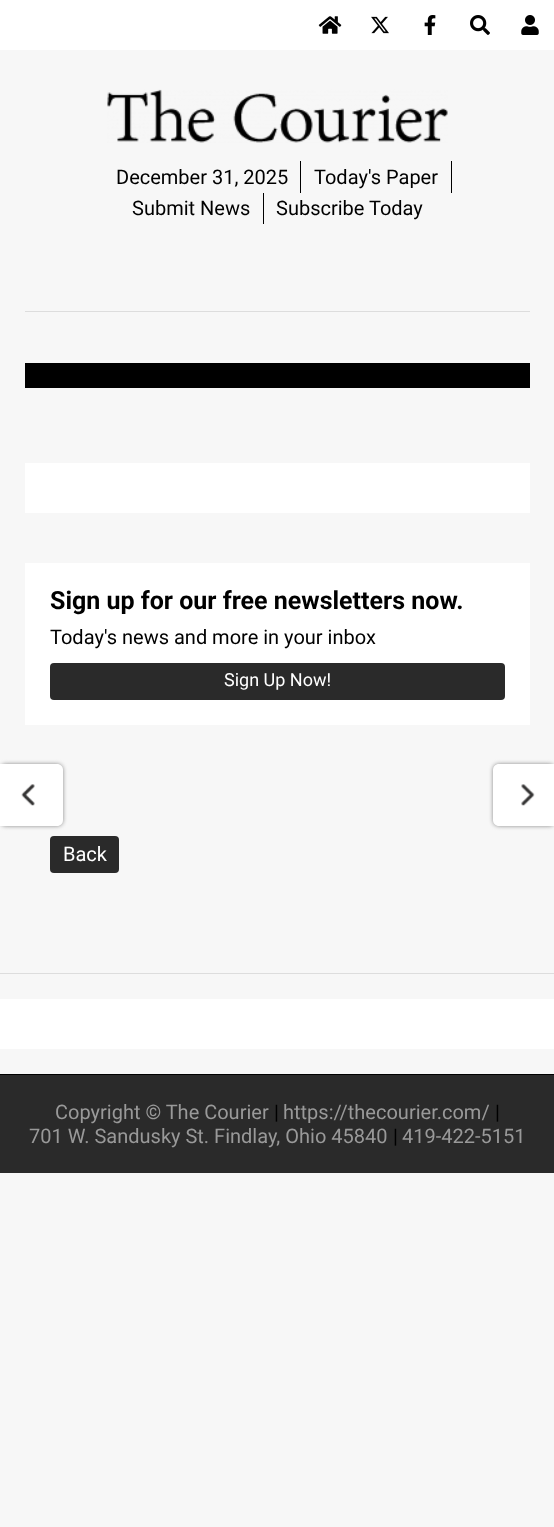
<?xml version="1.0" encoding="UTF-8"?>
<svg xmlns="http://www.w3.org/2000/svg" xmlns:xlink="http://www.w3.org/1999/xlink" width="554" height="1527">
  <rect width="100%" height="100%" fill="#f7f7f7" />
  <rect width="554" height="50" fill="#ffffff" />
  <image x="318" y="16" width="24" height="18" xlink:href="image1.png" />
  <image x="371" y="16" width="18" height="18" xlink:href="image2.png" />
  <image x="424" y="15" width="12" height="20" xlink:href="image3.png" />
  <image x="470" y="15" width="20" height="20" xlink:href="image4.png" />
  <image x="521" y="15" width="18" height="20" xlink:href="image5.png" />
  <image x="107" y="89" width="341" height="54" xlink:href="image6.png" />
  <rect x="300" y="161" width="1" height="32" fill="#000000" />
  <rect x="451" y="161" width="1" height="32" fill="#000000" />
  <rect x="263" y="193" width="1" height="31" fill="#000000" />
  <rect x="25" y="311" width="505" height="1" fill="#dddddd" />
  <rect x="25" y="363" width="505" height="25" fill="#000000" />
  <rect x="25" y="463" width="505" height="50" fill="#ffffff" />
  <rect x="25" y="563" width="505" height="162" fill="#ffffff" />
  <rect x="50" y="663" width="455" height="37" rx="4" fill="#2a2a2a" />
  <rect y="764" width="63" height="62" rx="6" fill="#888888" filter="blur(2px)" />
  <path d="M 0 764 h 57 c 3.5 0 6 2.5 6 6 v 50 c 0 3.5 -2.5 6 -6 6 h -57 z" fill="#ffffff" />
  <image x="21" y="784" width="14" height="22" xlink:href="image7.png" />
  <rect x="493" y="764" width="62" height="62" rx="6" fill="#888888" filter="blur(2px)" />
  <path d="M 499 764 h 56 v 62 h -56 c -3.5 0 -6 -2.5 -6 -6 v -50 c 0 -3.5 2.5 -6 6 -6 z" fill="#ffffff" />
  <image x="521" y="784" width="14" height="22" xlink:href="image8.png" />
  <rect x="50" y="836" width="69" height="37" rx="4" fill="#2a2a2a" />
  <rect y="973" width="554" height="1" fill="#dddddd" />
  <rect y="999" width="554" height="50" fill="#ffffff" />
  <rect y="1074" width="554" height="1" fill="#000000" />
  <rect y="1075" width="554" height="98" fill="#2a2a2a" />
  <text x="116" y="184" style="font-family: Roboto; font-size: 20px; fill: #000000">December 31, 2025</text>
  <text x="314" y="184" style="font-family: Roboto; font-size: 20px; fill: #000000">Today's Paper</text>
  <text x="132" y="215" style="font-family: Roboto; font-size: 20px; fill: #000000">Submit News</text>
  <text x="276" y="215" style="font-family: Roboto; font-size: 20px; fill: #000000">Subscribe Today</text>
  <text x="50" y="609" style="font-family: Roboto; font-size: 25px; font-weight: bold; fill: #000000">Sign up for our free newsletters now.</text>
  <text x="50" y="644" style="font-family: Roboto; font-size: 20px; fill: #000000">Today's news and more in your inbox</text>
  <text x="224" y="686" style="font-family: Roboto; font-size: 18px; fill: #ffffff">Sign Up Now!</text>
  <text x="63" y="861" style="font-family: Roboto; font-size: 20px; fill: #ffffff">Back</text>
  <text x="55" y="1119" style="font-family: Roboto; font-size: 20px; fill: #999999">Copyright © The Courier</text>
  <text x="274" y="1119" style="font-family: Roboto; font-size: 20px; fill: #000000">|</text>
  <text x="283" y="1119" style="font-family: Roboto; font-size: 20px; fill: #999999">https://thecourier.com/</text>
  <text x="495" y="1119" style="font-family: Roboto; font-size: 20px; fill: #000000">|</text>
  <text x="29" y="1143" style="font-family: Roboto; font-size: 20px; fill: #999999">701 W. Sandusky St. Findlay, Ohio 45840</text>
  <text x="393" y="1143" style="font-family: Roboto; font-size: 20px; fill: #000000">|</text>
  <text x="402" y="1143" style="font-family: Roboto; font-size: 20px; fill: #999999">419-422-5151</text>
</svg>
